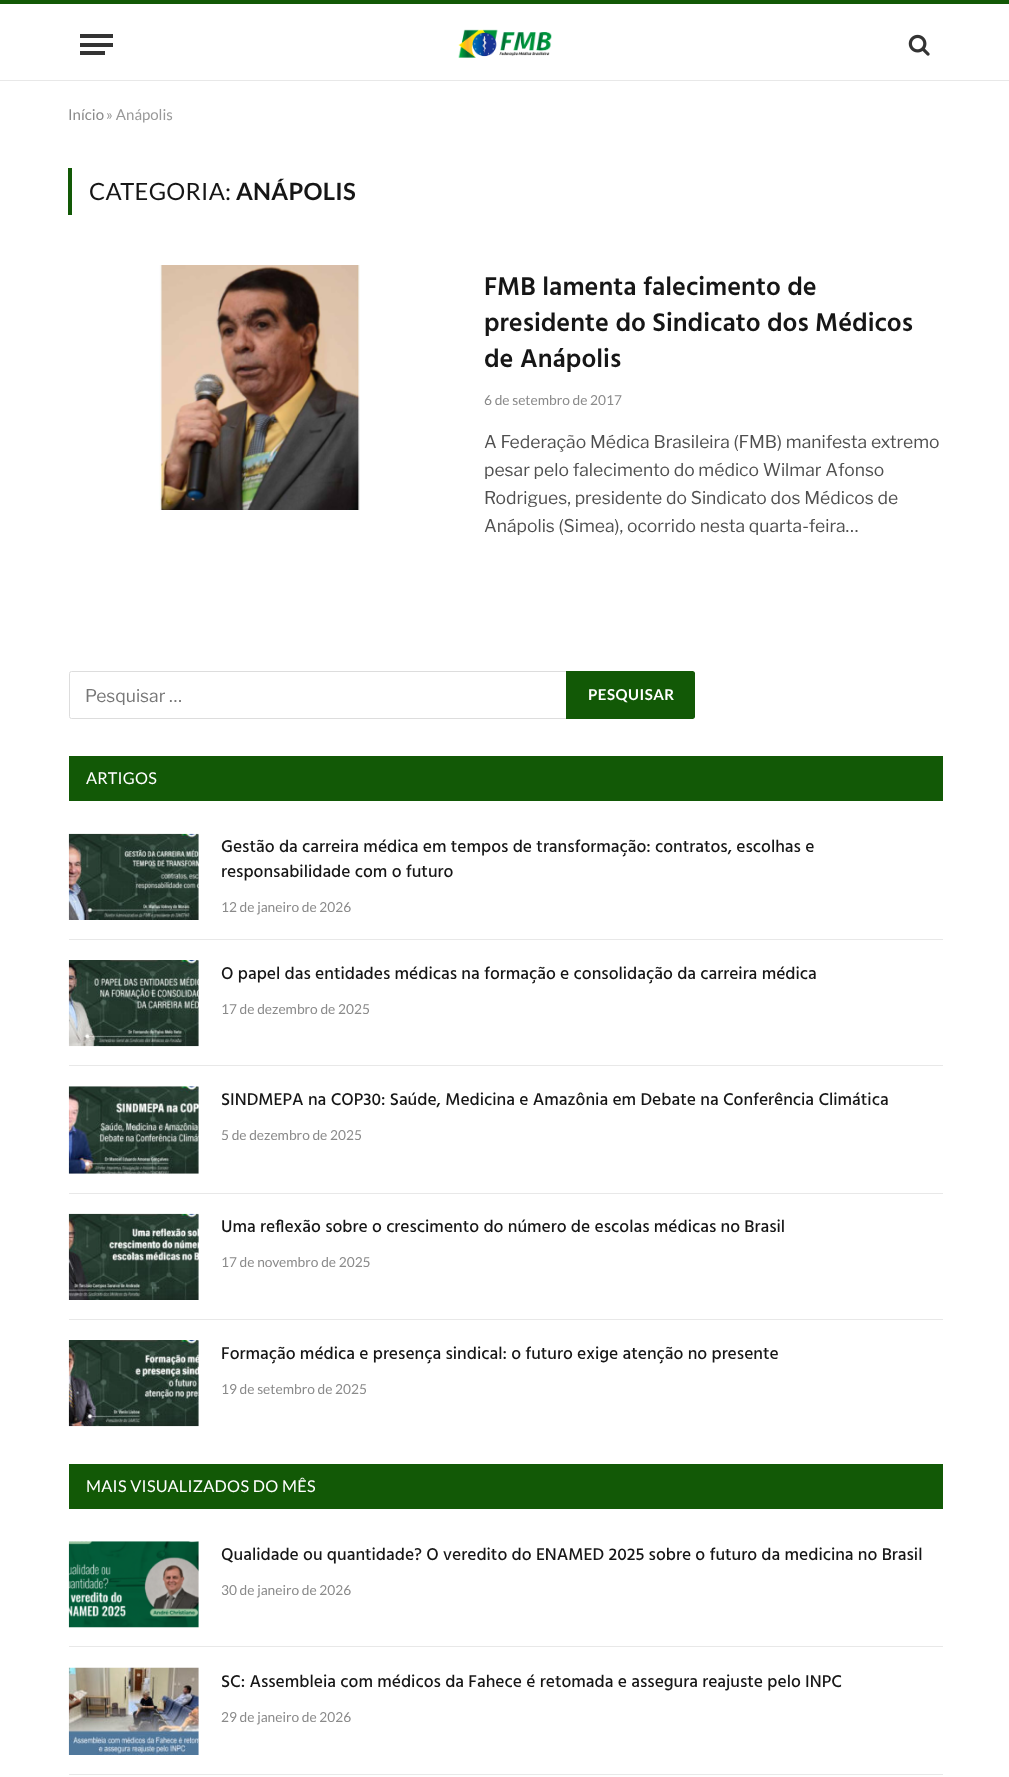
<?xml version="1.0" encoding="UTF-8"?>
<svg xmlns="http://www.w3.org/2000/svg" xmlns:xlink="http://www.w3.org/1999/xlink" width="1009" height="1777">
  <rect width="100%" height="100%" fill="#ffffff" />
  <rect width="1009" height="4" fill="#125906" />
  <rect y="80" width="1009" height="1" fill="#e8e8e8" />
  <rect x="80" y="51" width="25" height="4" fill="#333333" />
  <rect x="80" y="34" width="33" height="4" fill="#333333" />
  <rect x="80" y="43" width="33" height="4" fill="#333333" />
  <image x="458" y="29" width="94" height="29" xlink:href="image1.png" />
  <image x="908" y="34" width="22" height="22" xlink:href="image2.png" />
  <rect x="68" y="168" width="4" height="47" fill="#125906" />
  <image x="159" y="265" width="201" height="245" xlink:href="image3.png" />
  <rect x="69.5" y="671.5" width="499" height="47" rx="2" fill="none" stroke="#dddddd" />
  <path d="M 566 671 h 126.5 c 1.5 0 2.5 1 2.5 2.5 v 43 c 0 1.5 -1 2.5 -2.5 2.5 h -126.5 z" fill="#125906" />
  <rect x="69" y="756" width="874" height="45" fill="#125906" />
  <image x="68" y="833" width="131" height="87" xlink:href="image4.png" />
  <rect x="69" y="939" width="874" height="1" fill="#e8e8e8" />
  <image x="68" y="960" width="131" height="87" xlink:href="image5.png" />
  <rect x="69" y="1065" width="874" height="1" fill="#e8e8e8" />
  <image x="68" y="1086" width="131" height="88" xlink:href="image6.png" />
  <rect x="69" y="1193" width="874" height="1" fill="#e8e8e8" />
  <image x="68" y="1213" width="131" height="87" xlink:href="image7.png" />
  <rect x="69" y="1319" width="874" height="1" fill="#e8e8e8" />
  <image x="68" y="1340" width="131" height="87" xlink:href="image8.png" />
  <rect x="69" y="1464" width="874" height="45" fill="#125906" />
  <image x="68" y="1541" width="131" height="87" xlink:href="image9.png" />
  <rect x="69" y="1646" width="874" height="1" fill="#e8e8e8" />
  <image x="68" y="1667" width="131" height="88" xlink:href="image10.png" />
  <rect x="69" y="1774" width="874" height="1" fill="#e8e8e8" />
  <text x="68" y="120" style="font-family: Lato; font-size: 15px; fill: #8a8a8a">Início</text>
  <text x="106" y="120" style="font-family: Lato; font-size: 15px; fill: #999999">» Anápolis</text>
  <text x="89" y="200" style="font-family: Lato; font-size: 23.75px; letter-spacing: 0.25px; fill: #161616">CATEGORIA:</text>
  <text x="236" y="200" style="font-family: Lato; font-size: 23.75px; font-weight: bold; letter-spacing: 0.25px; fill: #161616">ANÁPOLIS</text>
  <text x="484" y="295" style="font-family: Hind; font-size: 26.25px; font-weight: 600; fill: #161616">FMB lamenta falecimento de</text>
  <text x="484" y="331" style="font-family: Hind; font-size: 26.25px; font-weight: 600; fill: #161616">presidente do Sindicato dos Médicos</text>
  <text x="484" y="367" style="font-family: Hind; font-size: 26.25px; font-weight: 600; fill: #161616">de Anápolis</text>
  <text x="484" y="405" style="font-family: Lato; font-size: 13.75px; fill: #8a8a8a">6 de setembro de 2017</text>
  <text x="484" y="448" style="font-family: Libre Franklin; font-size: 17.5px; fill: #505050">A Federação Médica Brasileira (FMB) manifesta extremo</text>
  <text x="484" y="476" style="font-family: Libre Franklin; font-size: 17.5px; fill: #505050">pesar pelo falecimento do médico Wilmar Afonso</text>
  <text x="484" y="504" style="font-family: Libre Franklin; font-size: 17.5px; fill: #505050">Rodrigues, presidente do Sindicato dos Médicos de</text>
  <text x="484" y="532" style="font-family: Libre Franklin; font-size: 17.5px; fill: #505050">Anápolis (Simea), ocorrido nesta quarta-feira…</text>
  <text x="85" y="702" style="font-family: Libre Franklin; font-size: 17.5px; fill: #777777">Pesquisar …</text>
  <text x="588" y="700" style="font-family: Lato; font-size: 15px; font-weight: bold; letter-spacing: 0.5px; fill: #ffffff">PESQUISAR</text>
  <text x="86" y="784" style="font-family: Lato; font-size: 16.25px; letter-spacing: 0.3px; fill: #ffffff">ARTIGOS</text>
  <text x="221" y="852" style="font-family: Hind; font-size: 17.5px; font-weight: 500; fill: #161616">Gestão da carreira médica em tempos de transformação: contratos, escolhas e</text>
  <text x="221" y="877" style="font-family: Hind; font-size: 17.5px; font-weight: 500; fill: #161616">responsabilidade com o futuro</text>
  <text x="221" y="912" style="font-family: Lato; font-size: 13.75px; fill: #8a8a8a">12 de janeiro de 2026</text>
  <text x="221" y="979" style="font-family: Hind; font-size: 17.5px; font-weight: 500; fill: #161616">O papel das entidades médicas na formação e consolidação da carreira médica</text>
  <text x="221" y="1014" style="font-family: Lato; font-size: 13.75px; fill: #8a8a8a">17 de dezembro de 2025</text>
  <text x="221" y="1105" style="font-family: Hind; font-size: 17.5px; font-weight: 500; fill: #161616">SINDMEPA na COP30: Saúde, Medicina e Amazônia em Debate na Conferência Climática</text>
  <text x="221" y="1140" style="font-family: Lato; font-size: 13.75px; fill: #8a8a8a">5 de dezembro de 2025</text>
  <text x="221" y="1232" style="font-family: Hind; font-size: 17.5px; font-weight: 500; fill: #161616">Uma reflexão sobre o crescimento do número de escolas médicas no Brasil</text>
  <text x="221" y="1267" style="font-family: Lato; font-size: 13.75px; fill: #8a8a8a">17 de novembro de 2025</text>
  <text x="221" y="1359" style="font-family: Hind; font-size: 17.5px; font-weight: 500; fill: #161616">Formação médica e presença sindical: o futuro exige atenção no presente</text>
  <text x="221" y="1394" style="font-family: Lato; font-size: 13.75px; fill: #8a8a8a">19 de setembro de 2025</text>
  <text x="86" y="1492" style="font-family: Lato; font-size: 16.25px; letter-spacing: 0.3px; fill: #ffffff">MAIS VISUALIZADOS DO MÊS</text>
  <text x="221" y="1560" style="font-family: Hind; font-size: 17.5px; font-weight: 500; fill: #161616">Qualidade ou quantidade? O veredito do ENAMED 2025 sobre o futuro da medicina no Brasil</text>
  <text x="221" y="1595" style="font-family: Lato; font-size: 13.75px; fill: #8a8a8a">30 de janeiro de 2026</text>
  <text x="221" y="1687" style="font-family: Hind; font-size: 17.5px; font-weight: 500; fill: #161616">SC: Assembleia com médicos da Fahece é retomada e assegura reajuste pelo INPC</text>
  <text x="221" y="1722" style="font-family: Lato; font-size: 13.75px; fill: #8a8a8a">29 de janeiro de 2026</text>
</svg>
